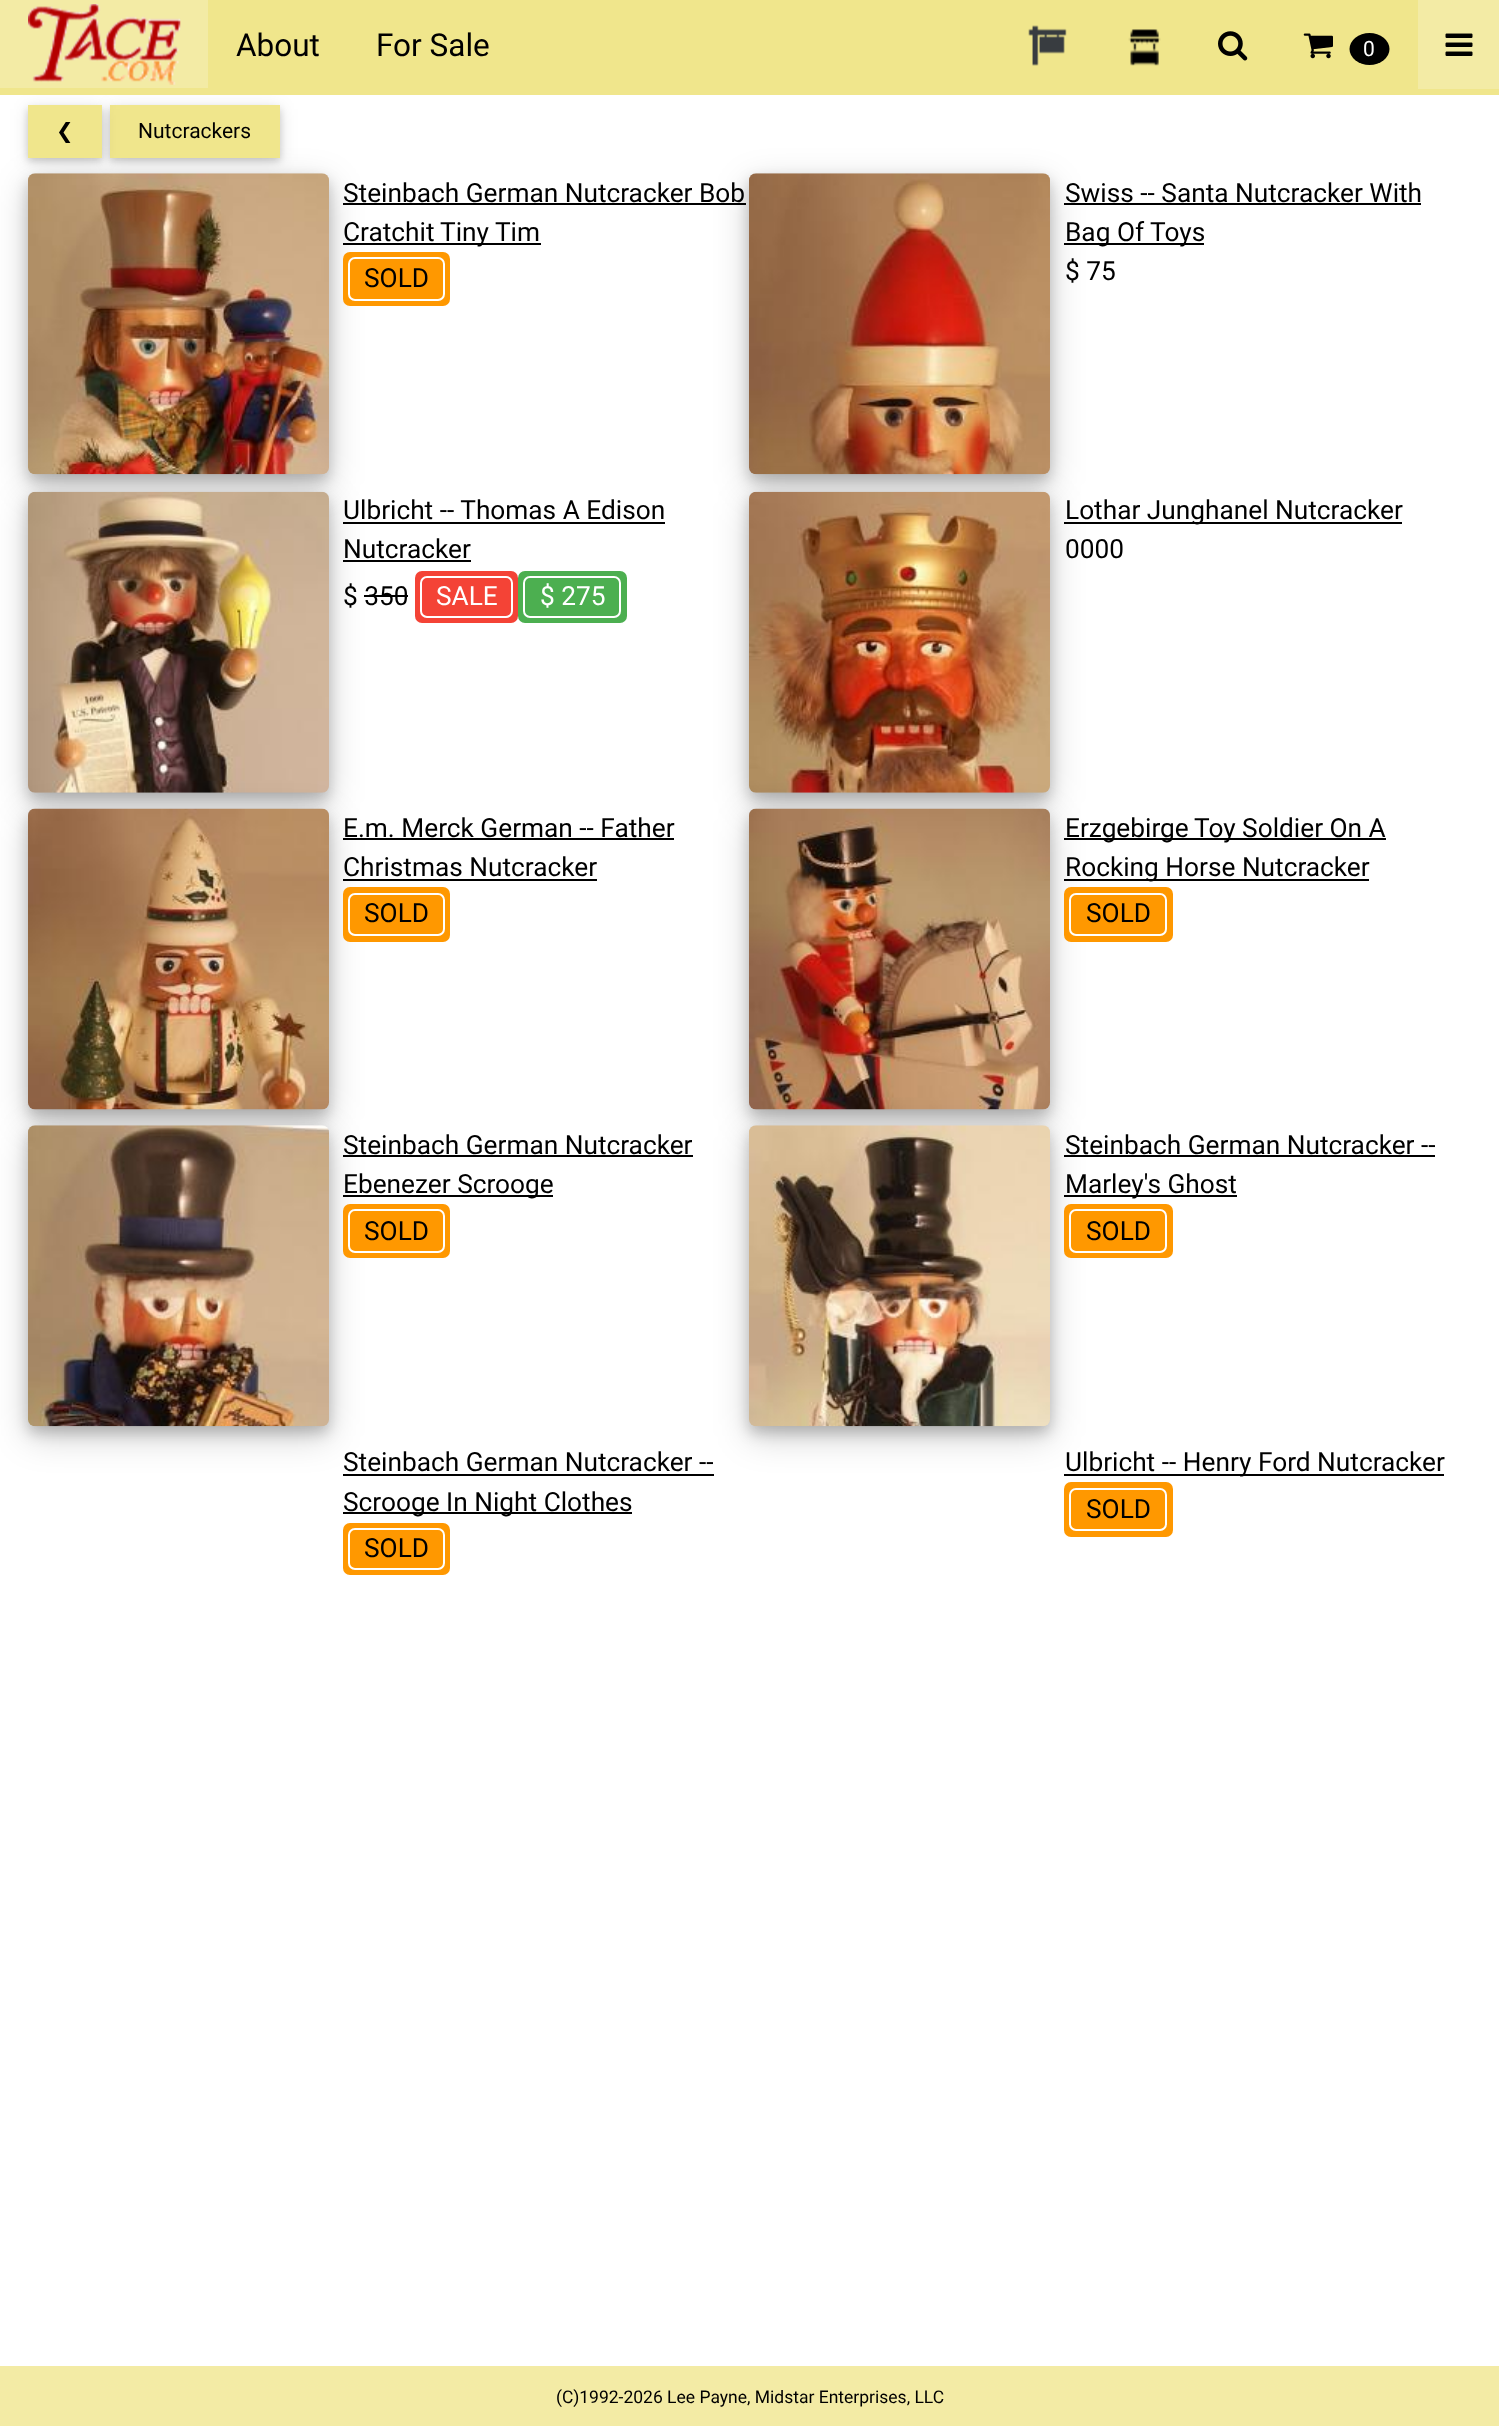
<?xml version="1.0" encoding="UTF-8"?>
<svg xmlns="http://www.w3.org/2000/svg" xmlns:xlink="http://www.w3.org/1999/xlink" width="1499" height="2426">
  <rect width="100%" height="100%" fill="#ffffff" />
  <rect x="28" y="184" width="301" height="301" rx="7" fill="#000000" fill-opacity="0.19" filter="blur(17.5px)" />
  <rect x="28" y="180" width="301" height="301" rx="7" fill="#000000" fill-opacity="0.2" filter="blur(7px)" />
  <image x="28" y="173" width="301" height="302" xlink:href="image7.png" />
  <rect x="110" y="109" width="170" height="52" fill="#000000" fill-opacity="0.12" filter="blur(9px)" />
  <rect x="110" y="109" width="170" height="52" fill="#000000" fill-opacity="0.16" filter="blur(3.5px)" />
  <rect x="110" y="105" width="170" height="53" fill="#f0e68c" />
  <rect x="28" y="109" width="74" height="52" fill="#000000" fill-opacity="0.12" filter="blur(9px)" />
  <rect width="1499" height="95" fill="#f0e68c" />
  <rect width="208" height="88" fill="#f3eba5" />
  <image x="28" y="4" width="153" height="81" xlink:href="image1.png" />
  <image x="1028" y="25" width="39" height="41" xlink:href="image2.png" />
  <image x="1128" y="29" width="33" height="37" xlink:href="image3.png" />
  <image x="1218" y="31" width="30" height="30" xlink:href="image4.png" />
  <image x="1303" y="33" width="30" height="26" xlink:href="image5.png" />
  <ellipse cx="1369.5" cy="49" rx="20" ry="16" fill="#000000" />
  <rect x="1418" width="81" height="89" fill="#f3eba5" />
  <image x="1445" y="33" width="28" height="23" xlink:href="image6.png" />
  <rect x="28" y="109" width="74" height="52" fill="#000000" fill-opacity="0.16" filter="blur(3.5px)" />
  <rect x="28" y="105" width="74" height="53" fill="#f0e68c" />
  <rect x="343" y="203" width="403" height="2" fill="#000000" />
  <rect x="343" y="243" width="198" height="2" fill="#000000" />
  <rect x="343" y="252" width="107" height="54" rx="7" fill="#ff9800" />
  <rect x="349" y="258" width="95" height="42" rx="6" fill="none" stroke="#ffffff" stroke-width="2" />
  <rect x="749" y="184" width="301" height="301" rx="7" fill="#000000" fill-opacity="0.19" filter="blur(17.5px)" />
  <rect x="749" y="180" width="301" height="301" rx="7" fill="#000000" fill-opacity="0.2" filter="blur(7px)" />
  <image x="749" y="173" width="301" height="302" xlink:href="image8.png" />
  <rect x="1064" y="203" width="357" height="2" fill="#000000" />
  <rect x="1064" y="243" width="140" height="2" fill="#000000" />
  <rect x="28" y="502" width="301" height="301" rx="7" fill="#000000" fill-opacity="0.19" filter="blur(17.5px)" />
  <rect x="28" y="499" width="301" height="301" rx="7" fill="#000000" fill-opacity="0.2" filter="blur(7px)" />
  <image x="28" y="491" width="301" height="302" xlink:href="image9.png" />
  <rect x="343" y="522" width="322" height="2" fill="#000000" />
  <rect x="343" y="560" width="128" height="2" fill="#000000" />
  <rect x="415" y="571" width="103" height="52" rx="7" fill="#f44336" />
  <rect x="421" y="577" width="91" height="40" rx="6" fill="none" stroke="#ffffff" stroke-width="2" />
  <rect x="518" y="571" width="109" height="52" rx="7" fill="#4caf50" />
  <rect x="524" y="577" width="96" height="40" rx="6" fill="none" stroke="#ffffff" stroke-width="2" />
  <rect x="364" y="595" width="44" height="2" fill="#000000" />
  <rect x="749" y="502" width="301" height="301" rx="7" fill="#000000" fill-opacity="0.19" filter="blur(17.5px)" />
  <rect x="749" y="499" width="301" height="301" rx="7" fill="#000000" fill-opacity="0.2" filter="blur(7px)" />
  <image x="749" y="491" width="301" height="302" xlink:href="image10.png" />
  <rect x="1064" y="522" width="338" height="2" fill="#000000" />
  <rect x="28" y="819" width="301" height="301" rx="7" fill="#000000" fill-opacity="0.19" filter="blur(17.5px)" />
  <rect x="28" y="816" width="301" height="301" rx="7" fill="#000000" fill-opacity="0.2" filter="blur(7px)" />
  <image x="28" y="808" width="301" height="302" xlink:href="image11.png" />
  <rect x="343" y="838" width="331" height="2" fill="#000000" />
  <rect x="343" y="879" width="254" height="2" fill="#000000" />
  <rect x="343" y="887" width="107" height="55" rx="7" fill="#ff9800" />
  <rect x="349" y="894" width="95" height="41" rx="6" fill="none" stroke="#ffffff" stroke-width="2" />
  <rect x="749" y="819" width="301" height="301" rx="7" fill="#000000" fill-opacity="0.19" filter="blur(17.5px)" />
  <rect x="749" y="816" width="301" height="301" rx="7" fill="#000000" fill-opacity="0.2" filter="blur(7px)" />
  <image x="749" y="808" width="301" height="302" xlink:href="image12.png" />
  <rect x="1064" y="838" width="322" height="2" fill="#000000" />
  <rect x="1064" y="879" width="305" height="2" fill="#000000" />
  <rect x="1064" y="887" width="109" height="55" rx="7" fill="#ff9800" />
  <rect x="1070" y="894" width="96" height="41" rx="6" fill="none" stroke="#ffffff" stroke-width="2" />
  <rect x="28" y="1136" width="301" height="301" rx="7" fill="#000000" fill-opacity="0.19" filter="blur(17.5px)" />
  <rect x="28" y="1132" width="301" height="301" rx="7" fill="#000000" fill-opacity="0.2" filter="blur(7px)" />
  <image x="28" y="1125" width="301" height="302" xlink:href="image13.png" />
  <rect x="343" y="1155" width="350" height="2" fill="#000000" />
  <rect x="343" y="1195" width="210" height="2" fill="#000000" />
  <rect x="343" y="1204" width="107" height="54" rx="7" fill="#ff9800" />
  <rect x="349" y="1210" width="95" height="42" rx="6" fill="none" stroke="#ffffff" stroke-width="2" />
  <rect x="749" y="1136" width="301" height="301" rx="7" fill="#000000" fill-opacity="0.19" filter="blur(17.5px)" />
  <rect x="749" y="1132" width="301" height="301" rx="7" fill="#000000" fill-opacity="0.2" filter="blur(7px)" />
  <image x="749" y="1125" width="301" height="302" xlink:href="image14.png" />
  <rect x="1064" y="1155" width="371" height="2" fill="#000000" />
  <rect x="1064" y="1195" width="173" height="2" fill="#000000" />
  <rect x="1064" y="1204" width="109" height="54" rx="7" fill="#ff9800" />
  <rect x="1070" y="1210" width="96" height="42" rx="6" fill="none" stroke="#ffffff" stroke-width="2" />
  <rect x="343" y="1474" width="371" height="2" fill="#000000" />
  <rect x="343" y="1512" width="289" height="2" fill="#000000" />
  <rect x="343" y="1523" width="107" height="52" rx="7" fill="#ff9800" />
  <rect x="349" y="1529" width="95" height="40" rx="6" fill="none" stroke="#ffffff" stroke-width="2" />
  <rect x="1064" y="1474" width="380" height="2" fill="#000000" />
  <rect x="1064" y="1482" width="109" height="55" rx="7" fill="#ff9800" />
  <rect x="1070" y="1489" width="96" height="41" rx="6" fill="none" stroke="#ffffff" stroke-width="2" />
  <rect y="2366" width="1499" height="60" fill="#f3eba5" />
  <text x="236" y="56" style="font-family: Roboto; font-size: 31.5px; fill: #000000">About</text>
  <text x="376" y="56" style="font-family: Roboto; font-size: 31.5px; fill: #000000">For Sale</text>
  <text x="1363" y="56" style="font-family: Roboto; font-size: 21px; fill: #ffffff">0</text>
  <text x="56" y="138" style="font-family: DejaVu Sans; font-size: 21px; fill: #000000">❮</text>
  <text x="138" y="138" style="font-family: Roboto; font-size: 21px; fill: #000000">Nutcrackers</text>
  <text x="343" y="202" style="font-family: Roboto; font-size: 26.25px; fill: #000000">Steinbach German Nutcracker Bob</text>
  <text x="343" y="241" style="font-family: Roboto; font-size: 26.25px; fill: #000000">Cratchit</text>
  <text x="440" y="241" style="font-family: Roboto; font-size: 26.25px; fill: #000000">Tiny Tim</text>
  <text x="364" y="287" style="font-family: Roboto; font-size: 26.25px; fill: #000000">SOLD</text>
  <text x="1065" y="202" style="font-family: Roboto; font-size: 26.25px; fill: #000000">Swiss -- Santa Nutcracker With</text>
  <text x="1065" y="241" style="font-family: Roboto; font-size: 26.25px; fill: #000000">Bag Of Toys</text>
  <text x="1065" y="280" style="font-family: Roboto; font-size: 26.25px; fill: #000000">$ 75</text>
  <text x="343" y="519" style="font-family: Roboto; font-size: 26.25px; fill: #000000">Ulbricht -- Thomas A Edison</text>
  <text x="343" y="558" style="font-family: Roboto; font-size: 26.25px; fill: #000000">Nutcracker</text>
  <text x="343" y="605" style="font-family: Roboto; font-size: 26.25px; fill: #000000">$ 350</text>
  <text x="436" y="605" style="font-family: Roboto; font-size: 26.25px; fill: #ffffff">SALE</text>
  <text x="540" y="605" style="font-family: Roboto; font-size: 26.25px; fill: #ffffff">$ 275</text>
  <text x="1065" y="519" style="font-family: Roboto; font-size: 26.25px; fill: #000000">Lothar Junghanel Nutcracker</text>
  <text x="1065" y="558" style="font-family: Roboto; font-size: 26.25px; fill: #000000">0000</text>
  <text x="343" y="837" style="font-family: Roboto; font-size: 26.25px; fill: #000000">E.m. Merck German -- Father</text>
  <text x="343" y="876" style="font-family: Roboto; font-size: 26.25px; fill: #000000">Christmas Nutcracker</text>
  <text x="364" y="922" style="font-family: Roboto; font-size: 26.25px; fill: #000000">SOLD</text>
  <text x="1065" y="837" style="font-family: Roboto; font-size: 26.25px; fill: #000000">Erzgebirge</text>
  <text x="1194" y="837" style="font-family: Roboto; font-size: 26.25px; fill: #000000">Toy Soldier On A</text>
  <text x="1065" y="876" style="font-family: Roboto; font-size: 26.25px; fill: #000000">Rocking Horse Nutcracker</text>
  <text x="1086" y="922" style="font-family: Roboto; font-size: 26.25px; fill: #000000">SOLD</text>
  <text x="343" y="1154" style="font-family: Roboto; font-size: 26.25px; fill: #000000">Steinbach German Nutcracker</text>
  <text x="343" y="1193" style="font-family: Roboto; font-size: 26.25px; fill: #000000">Ebenezer Scrooge</text>
  <text x="364" y="1240" style="font-family: Roboto; font-size: 26.25px; fill: #000000">SOLD</text>
  <text x="1065" y="1154" style="font-family: Roboto; font-size: 26.25px; fill: #000000">Steinbach German Nutcracker --</text>
  <text x="1065" y="1193" style="font-family: Roboto; font-size: 26.25px; fill: #000000">Marley's Ghost</text>
  <text x="1086" y="1240" style="font-family: Roboto; font-size: 26.25px; fill: #000000">SOLD</text>
  <text x="343" y="1471" style="font-family: Roboto; font-size: 26.25px; fill: #000000">Steinbach German Nutcracker --</text>
  <text x="343" y="1511" style="font-family: Roboto; font-size: 26.25px; fill: #000000">Scrooge In Night Clothes</text>
  <text x="364" y="1557" style="font-family: Roboto; font-size: 26.25px; fill: #000000">SOLD</text>
  <text x="1065" y="1471" style="font-family: Roboto; font-size: 26.25px; fill: #000000">Ulbricht -- Henry Ford Nutcracker</text>
  <text x="1086" y="1518" style="font-family: Roboto; font-size: 26.25px; fill: #000000">SOLD</text>
  <text x="556" y="2403" style="font-family: Roboto; font-size: 17.5px; fill: #000000">(C)1992-2026 Lee Payne, Midstar Enterprises, LLC</text>
</svg>
